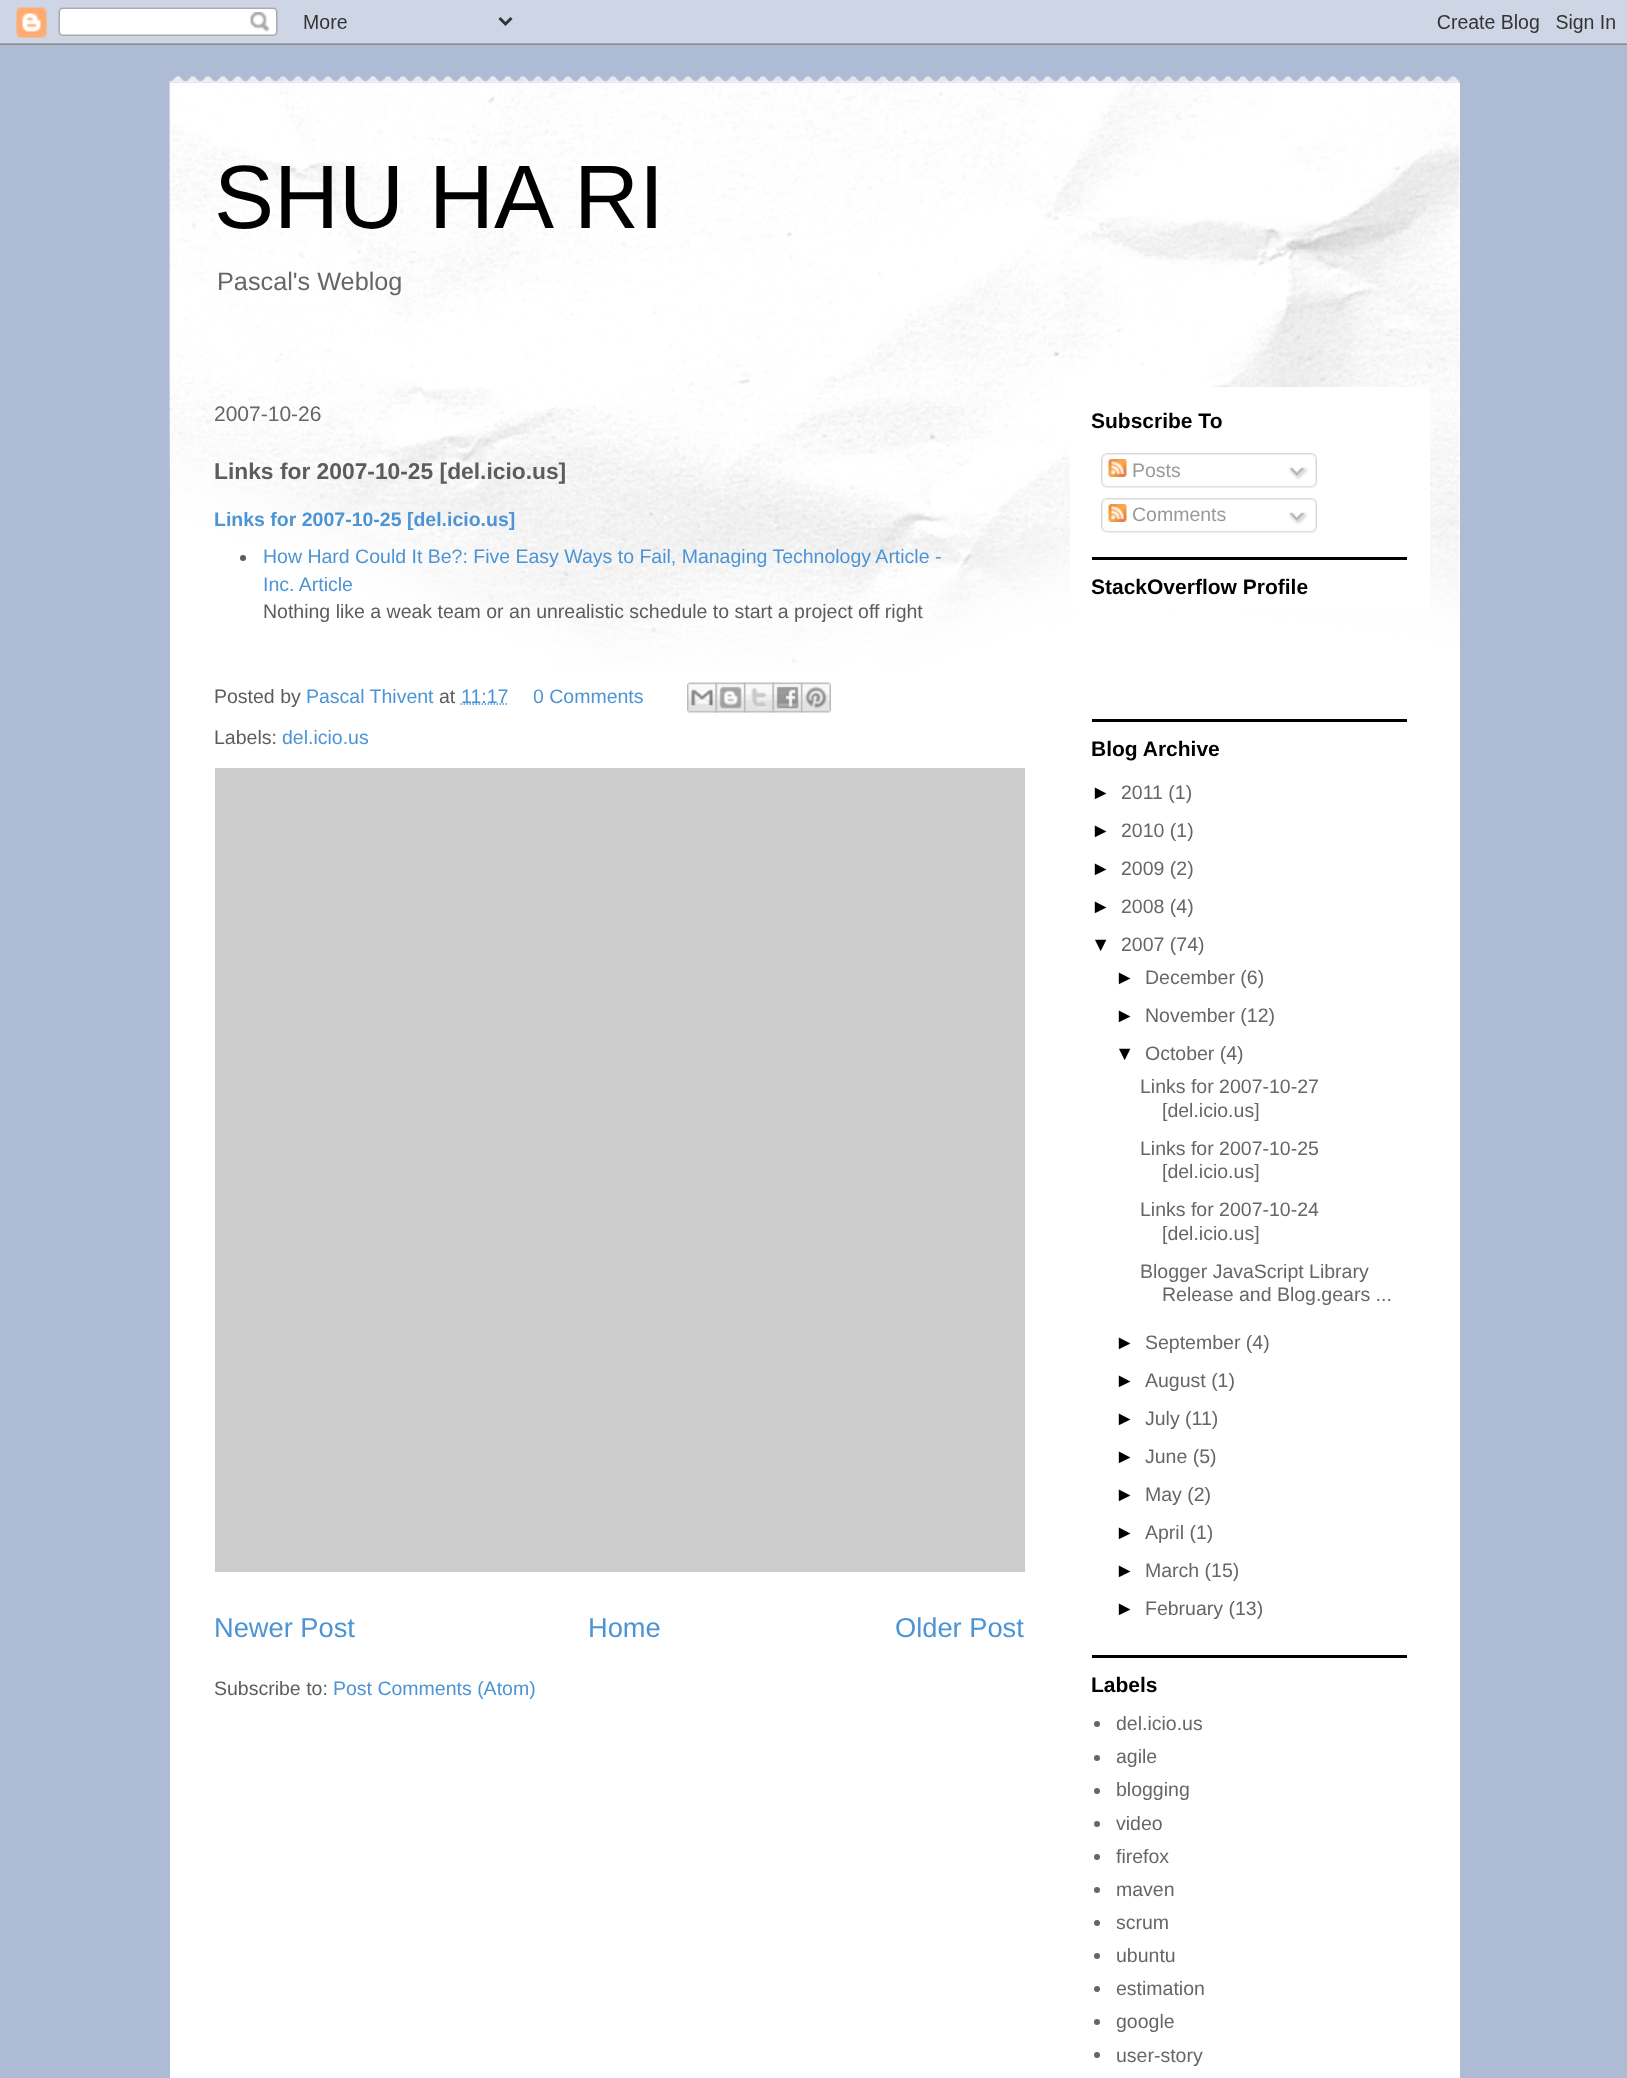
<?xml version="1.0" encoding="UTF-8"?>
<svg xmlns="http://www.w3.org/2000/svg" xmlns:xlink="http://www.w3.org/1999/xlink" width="1627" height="2078">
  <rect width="100%" height="100%" fill="#adbbd5" />
  <image x="0" y="0" width="1627" height="45" xlink:href="image1.png" />
  <image x="169" y="76" width="1291" height="7" xlink:href="image2.png" />
  <rect x="170" y="83" width="1290" height="1995" fill="#ffffff" />
  <image x="169" y="82" width="1291" height="588" xlink:href="image3.png" />
  <rect x="1070" y="387" width="360" height="224" fill="#ffffff" />
  <circle cx="243" cy="558" r="3" fill="#5c5c5c" />
  <path d="M 460.5 704 h 47.5" fill="none" stroke="#4c94d4" stroke-width="1.5" stroke-dasharray="1.5 1.5" />
  <image x="687" y="682" width="30" height="31" xlink:href="image4.png" />
  <image x="715" y="682" width="31" height="31" xlink:href="image5.png" />
  <image x="744" y="682" width="30" height="31" xlink:href="image6.png" />
  <image x="772" y="682" width="31" height="31" xlink:href="image7.png" />
  <image x="801" y="682" width="30" height="31" xlink:href="image8.png" />
  <rect x="215" y="768" width="810" height="804" fill="#cccccc" />
  <rect x="1092" y="557" width="315" height="3" fill="#000000" />
  <image x="1101" y="453" width="216" height="30" xlink:href="image9.png" />
  <image x="1108" y="459" width="19" height="18" xlink:href="image10.png" />
  <image x="1288" y="466" width="20" height="14" xlink:href="image11.png" />
  <image x="1101" y="483" width="216" height="5" xlink:href="image12.png" />
  <image x="1101" y="498" width="216" height="30" xlink:href="image9.png" />
  <image x="1108" y="504" width="19" height="18" xlink:href="image10.png" />
  <image x="1288" y="511" width="20" height="14" xlink:href="image11.png" />
  <image x="1101" y="528" width="216" height="5" xlink:href="image12.png" />
  <rect x="1092" y="719" width="315" height="3" fill="#000000" />
  <rect x="1092" y="1655" width="315" height="3" fill="#000000" />
  <circle cx="1097" cy="1724" r="3" fill="#666666" />
  <circle cx="1097" cy="1758" r="3" fill="#666666" />
  <circle cx="1097" cy="1791" r="3" fill="#666666" />
  <circle cx="1097" cy="1824" r="3" fill="#666666" />
  <circle cx="1097" cy="1857" r="3" fill="#666666" />
  <circle cx="1097" cy="1890" r="3" fill="#666666" />
  <circle cx="1097" cy="1923" r="3" fill="#666666" />
  <circle cx="1097" cy="1956" r="3" fill="#666666" />
  <circle cx="1097" cy="1989" r="3" fill="#666666" />
  <circle cx="1097" cy="2022" r="3" fill="#666666" />
  <circle cx="1097" cy="2055" r="3" fill="#666666" />
  <text x="214" y="228" style="font-family: Liberation Sans; font-size: 90px; fill: #000000">SHU HA RI</text>
  <text x="217" y="290" style="font-family: Liberation Sans; font-size: 25.25px; fill: #666666">Pascal's Weblog</text>
  <text x="214" y="421" style="font-family: Liberation Sans; font-size: 21px; fill: #666666">2007-10-26</text>
  <text x="214" y="479" style="font-family: Liberation Sans; font-size: 22.8px; font-weight: bold; fill: #5c5c5c">Links for 2007-10-25 [del.icio.us]</text>
  <text x="214" y="526" style="font-family: Liberation Sans; font-size: 19.5px; font-weight: bold; fill: #4c94d4">Links for 2007-10-25 [del.icio.us]</text>
  <text x="263" y="563" style="font-family: Liberation Sans; font-size: 19.5px; fill: #4c94d4">How Hard Could It Be?: Five Easy Ways to Fail, Managing Technology Article -</text>
  <text x="263" y="591" style="font-family: Liberation Sans; font-size: 19.5px; fill: #4c94d4">Inc. Article</text>
  <text x="263" y="618" style="font-family: Liberation Sans; font-size: 19.5px; fill: #5c5c5c">Nothing like a weak team or an unrealistic schedule to start a project off right</text>
  <text x="214" y="703" style="font-family: Liberation Sans; font-size: 19.5px; fill: #5c5c5c">Posted by</text>
  <text x="306" y="703" style="font-family: Liberation Sans; font-size: 19.5px; fill: #4c94d4">Pascal Thivent</text>
  <text x="439" y="703" style="font-family: Liberation Sans; font-size: 19.5px; fill: #5c5c5c">at</text>
  <text x="461" y="703" style="font-family: Liberation Sans; font-size: 19.5px; fill: #4c94d4">11:17</text>
  <text x="533" y="703" style="font-family: Liberation Sans; font-size: 19.5px; fill: #4c94d4">0 Comments</text>
  <text x="214" y="744" style="font-family: Liberation Sans; font-size: 19.5px; fill: #5c5c5c">Labels:</text>
  <text x="282" y="744" style="font-family: Liberation Sans; font-size: 19.5px; fill: #4c94d4">del.icio.us</text>
  <text x="214" y="1637" style="font-family: Liberation Sans; font-size: 27.25px; fill: #4c94d4">Newer Post</text>
  <text x="588" y="1637" style="font-family: Liberation Sans; font-size: 27.25px; fill: #4c94d4">Home</text>
  <text x="895" y="1637" style="font-family: Liberation Sans; font-size: 27.25px; fill: #4c94d4">Older Post</text>
  <text x="214" y="1695" style="font-family: Liberation Sans; font-size: 19.5px; fill: #5c5c5c">Subscribe to:</text>
  <text x="333" y="1695" style="font-family: Liberation Sans; font-size: 19.5px; fill: #4c94d4">Post Comments (Atom)</text>
  <text x="1091" y="428" style="font-family: Liberation Sans; font-size: 21px; font-weight: bold; fill: #000000">Subscribe To</text>
  <text x="1132" y="477" style="font-family: Liberation Sans; font-size: 19.5px; fill: #999999">Posts</text>
  <text x="1132" y="521" style="font-family: Liberation Sans; font-size: 19.5px; fill: #999999">Comments</text>
  <text x="1091" y="594" style="font-family: Liberation Sans; font-size: 21px; font-weight: bold; fill: #000000">StackOverflow Profile</text>
  <text x="1091" y="756" style="font-family: Liberation Sans; font-size: 21px; font-weight: bold; fill: #000000">Blog Archive</text>
  <text x="1091" y="799" style="font-family: Liberation Sans; font-size: 19.5px; fill: #000000">►</text>
  <text x="1121" y="799" style="font-family: Liberation Sans; font-size: 19.5px; fill: #666666">2011 (1)</text>
  <text x="1091" y="837" style="font-family: Liberation Sans; font-size: 19.5px; fill: #000000">►</text>
  <text x="1121" y="837" style="font-family: Liberation Sans; font-size: 19.5px; fill: #666666">2010 (1)</text>
  <text x="1091" y="875" style="font-family: Liberation Sans; font-size: 19.5px; fill: #000000">►</text>
  <text x="1121" y="875" style="font-family: Liberation Sans; font-size: 19.5px; fill: #666666">2009 (2)</text>
  <text x="1091" y="913" style="font-family: Liberation Sans; font-size: 19.5px; fill: #000000">►</text>
  <text x="1121" y="913" style="font-family: Liberation Sans; font-size: 19.5px; fill: #666666">2008 (4)</text>
  <text x="1091" y="951" style="font-family: Liberation Sans; font-size: 19.5px; fill: #000000">▼</text>
  <text x="1121" y="951" style="font-family: Liberation Sans; font-size: 19.5px; fill: #666666">2007 (74)</text>
  <text x="1115" y="984" style="font-family: Liberation Sans; font-size: 19.5px; fill: #000000">►</text>
  <text x="1145" y="984" style="font-family: Liberation Sans; font-size: 19.5px; fill: #666666">December (6)</text>
  <text x="1115" y="1022" style="font-family: Liberation Sans; font-size: 19.5px; fill: #000000">►</text>
  <text x="1145" y="1022" style="font-family: Liberation Sans; font-size: 19.5px; fill: #666666">November (12)</text>
  <text x="1115" y="1060" style="font-family: Liberation Sans; font-size: 19.5px; fill: #000000">▼</text>
  <text x="1145" y="1060" style="font-family: Liberation Sans; font-size: 19.5px; fill: #666666">October (4)</text>
  <text x="1140" y="1093" style="font-family: Liberation Sans; font-size: 19.5px; fill: #666666">Links for 2007-10-27</text>
  <text x="1162" y="1117" style="font-family: Liberation Sans; font-size: 19.5px; fill: #666666">[del.icio.us]</text>
  <text x="1140" y="1155" style="font-family: Liberation Sans; font-size: 19.5px; fill: #666666">Links for 2007-10-25</text>
  <text x="1162" y="1178" style="font-family: Liberation Sans; font-size: 19.5px; fill: #666666">[del.icio.us]</text>
  <text x="1140" y="1216" style="font-family: Liberation Sans; font-size: 19.5px; fill: #666666">Links for 2007-10-24</text>
  <text x="1162" y="1240" style="font-family: Liberation Sans; font-size: 19.5px; fill: #666666">[del.icio.us]</text>
  <text x="1140" y="1278" style="font-family: Liberation Sans; font-size: 19.5px; fill: #666666">Blogger JavaScript Library</text>
  <text x="1162" y="1301" style="font-family: Liberation Sans; font-size: 19.5px; fill: #666666">Release and Blog.gears ...</text>
  <text x="1115" y="1349" style="font-family: Liberation Sans; font-size: 19.5px; fill: #000000">►</text>
  <text x="1145" y="1349" style="font-family: Liberation Sans; font-size: 19.5px; fill: #666666">September (4)</text>
  <text x="1115" y="1387" style="font-family: Liberation Sans; font-size: 19.5px; fill: #000000">►</text>
  <text x="1145" y="1387" style="font-family: Liberation Sans; font-size: 19.5px; fill: #666666">August (1)</text>
  <text x="1115" y="1425" style="font-family: Liberation Sans; font-size: 19.5px; fill: #000000">►</text>
  <text x="1145" y="1425" style="font-family: Liberation Sans; font-size: 19.5px; fill: #666666">July (11)</text>
  <text x="1115" y="1463" style="font-family: Liberation Sans; font-size: 19.5px; fill: #000000">►</text>
  <text x="1145" y="1463" style="font-family: Liberation Sans; font-size: 19.5px; fill: #666666">June (5)</text>
  <text x="1115" y="1501" style="font-family: Liberation Sans; font-size: 19.5px; fill: #000000">►</text>
  <text x="1145" y="1501" style="font-family: Liberation Sans; font-size: 19.5px; fill: #666666">May (2)</text>
  <text x="1115" y="1539" style="font-family: Liberation Sans; font-size: 19.5px; fill: #000000">►</text>
  <text x="1145" y="1539" style="font-family: Liberation Sans; font-size: 19.5px; fill: #666666">April (1)</text>
  <text x="1115" y="1577" style="font-family: Liberation Sans; font-size: 19.5px; fill: #000000">►</text>
  <text x="1145" y="1577" style="font-family: Liberation Sans; font-size: 19.5px; fill: #666666">March (15)</text>
  <text x="1115" y="1615" style="font-family: Liberation Sans; font-size: 19.5px; fill: #000000">►</text>
  <text x="1145" y="1615" style="font-family: Liberation Sans; font-size: 19.5px; fill: #666666">February (13)</text>
  <text x="1091" y="1692" style="font-family: Liberation Sans; font-size: 21px; font-weight: bold; fill: #000000">Labels</text>
  <text x="1116" y="1730" style="font-family: Liberation Sans; font-size: 19.5px; fill: #666666">del.icio.us</text>
  <text x="1116" y="1763" style="font-family: Liberation Sans; font-size: 19.5px; fill: #666666">agile</text>
  <text x="1116" y="1796" style="font-family: Liberation Sans; font-size: 19.5px; fill: #666666">blogging</text>
  <text x="1116" y="1830" style="font-family: Liberation Sans; font-size: 19.5px; fill: #666666">video</text>
  <text x="1116" y="1863" style="font-family: Liberation Sans; font-size: 19.5px; fill: #666666">firefox</text>
  <text x="1116" y="1896" style="font-family: Liberation Sans; font-size: 19.5px; fill: #666666">maven</text>
  <text x="1116" y="1929" style="font-family: Liberation Sans; font-size: 19.5px; fill: #666666">scrum</text>
  <text x="1116" y="1962" style="font-family: Liberation Sans; font-size: 19.5px; fill: #666666">ubuntu</text>
  <text x="1116" y="1995" style="font-family: Liberation Sans; font-size: 19.5px; fill: #666666">estimation</text>
  <text x="1116" y="2028" style="font-family: Liberation Sans; font-size: 19.5px; fill: #666666">google</text>
  <text x="1116" y="2062" style="font-family: Liberation Sans; font-size: 19.5px; fill: #666666">user-story</text>
</svg>
